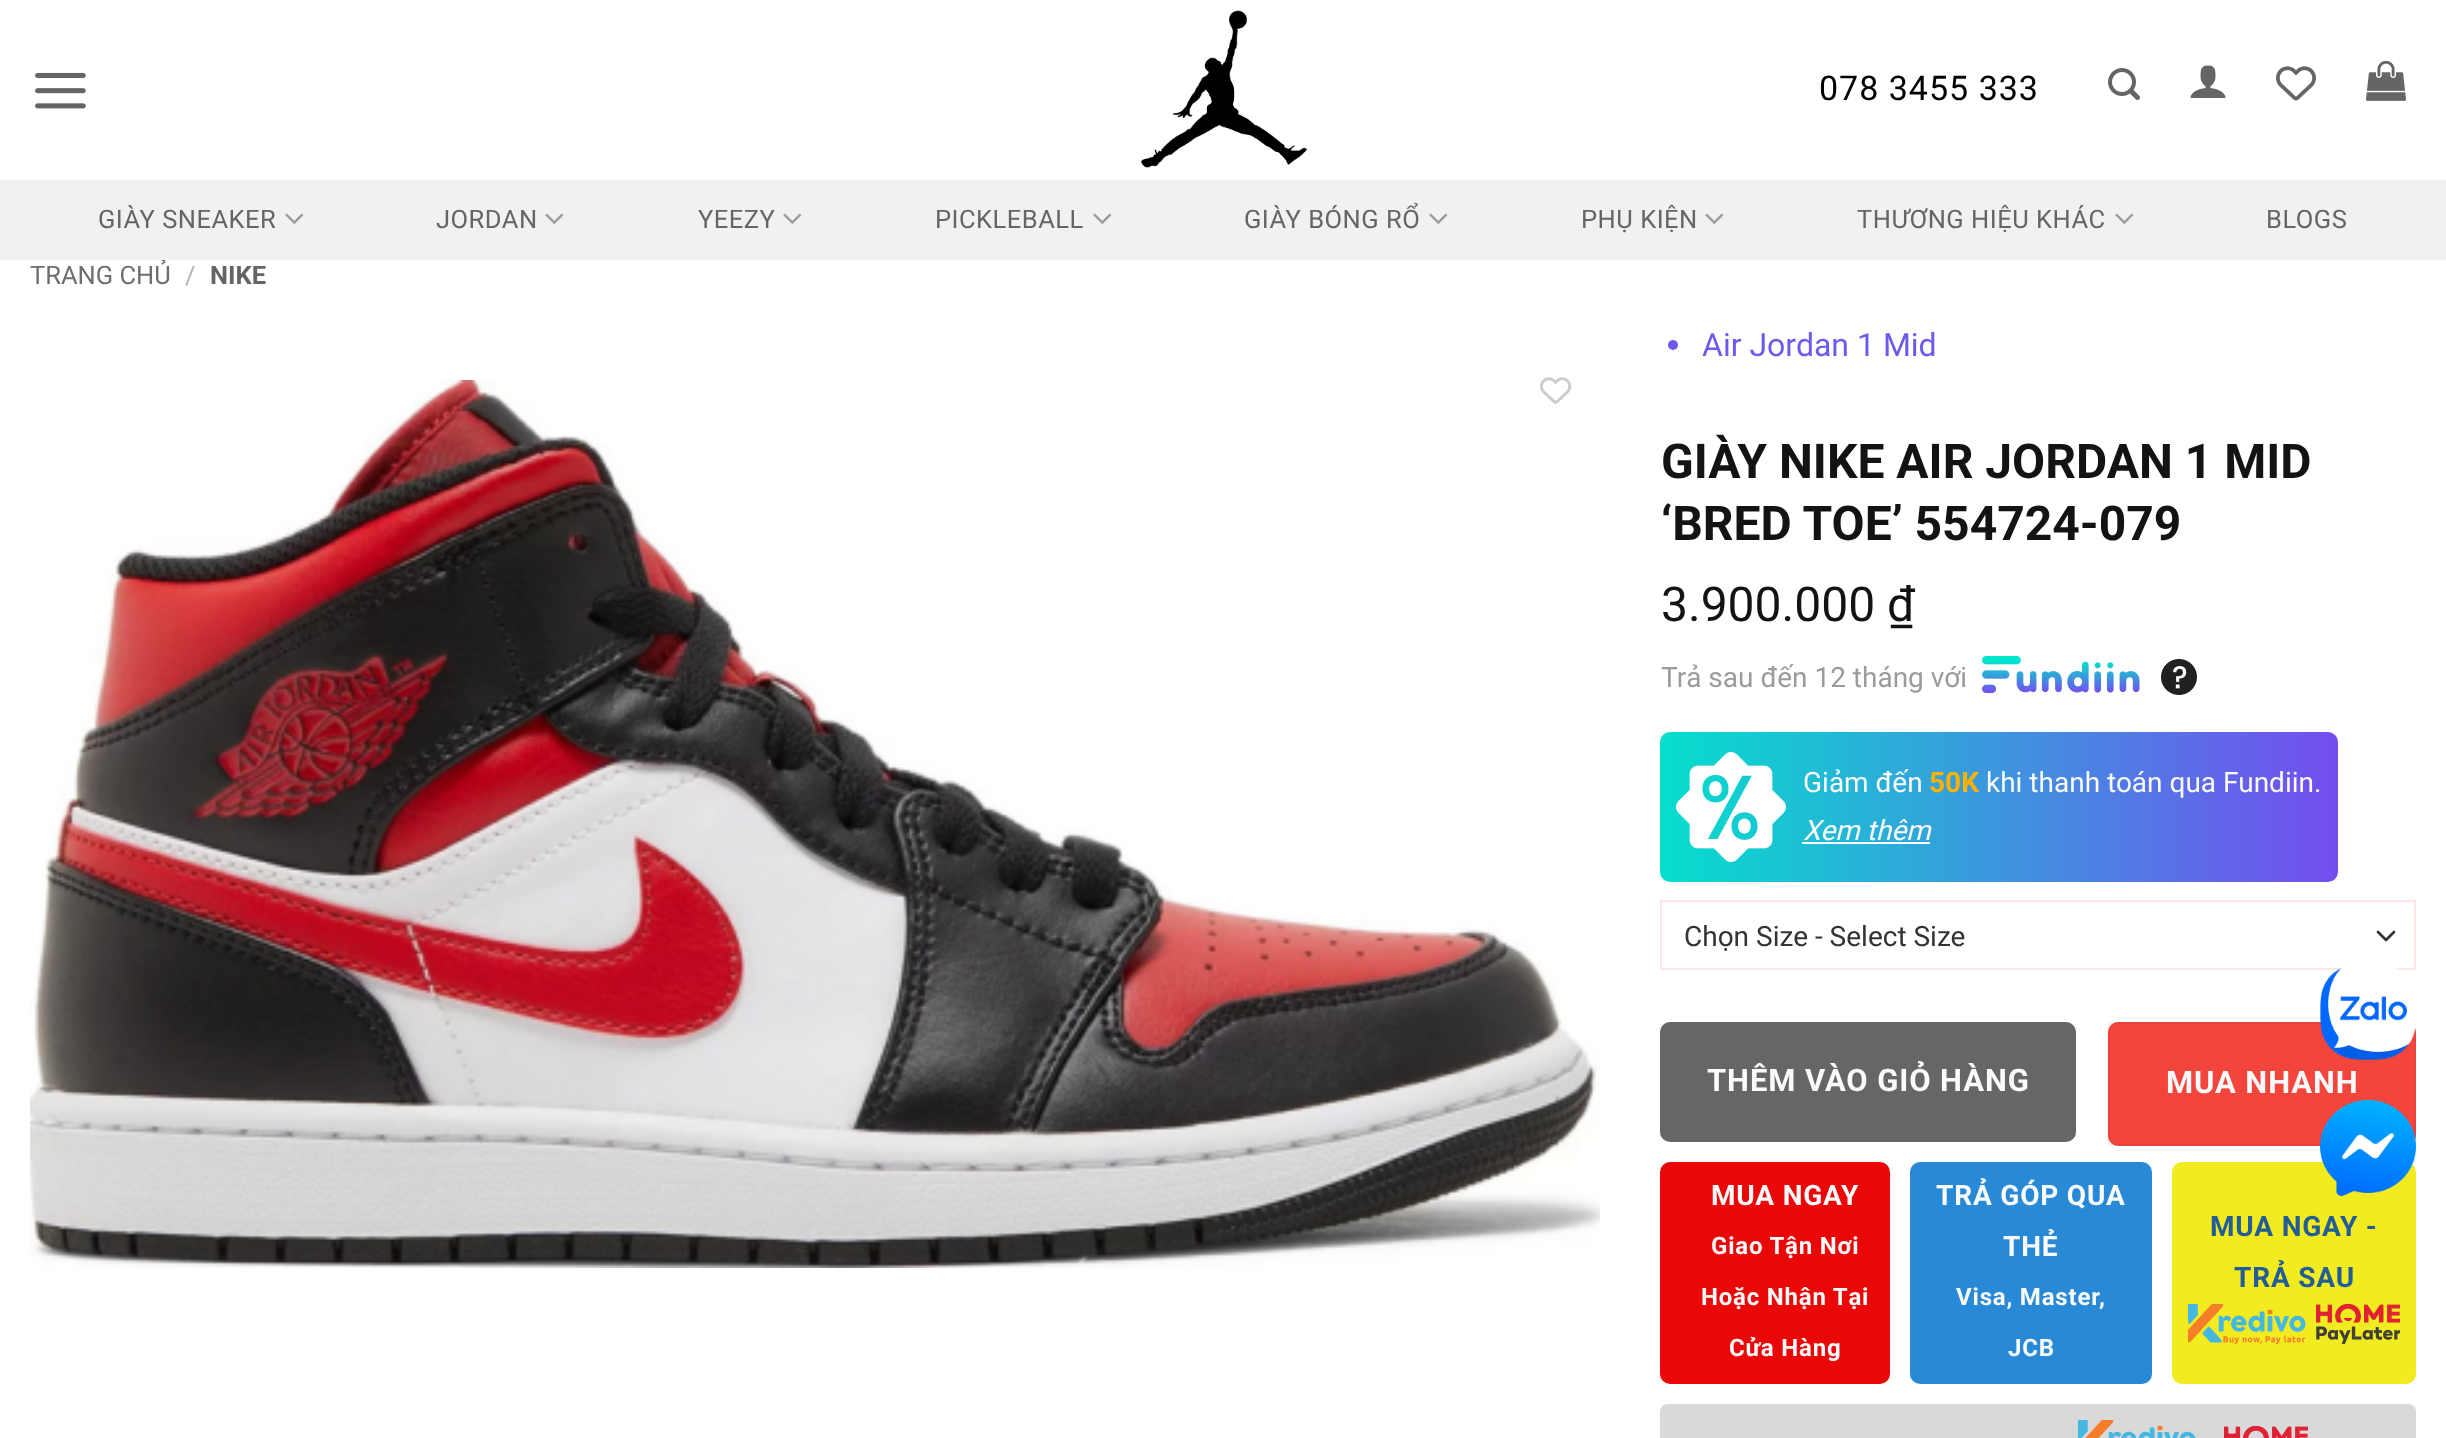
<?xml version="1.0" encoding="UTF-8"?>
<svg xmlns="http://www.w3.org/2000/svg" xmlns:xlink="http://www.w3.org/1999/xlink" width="2446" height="1438">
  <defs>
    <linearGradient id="g1" gradientUnits="userSpaceOnUse" x1="1660" y1="807" x2="2338" y2="807"><stop offset="0" stop-color="#06decd" /><stop offset="1" stop-color="#744def" /></linearGradient>
  </defs>
  <rect width="100%" height="100%" fill="#ffffff" />
  <image x="35" y="72" width="51" height="37" xlink:href="image1.png" />
  <image x="1141" y="10" width="166" height="158" xlink:href="image2.png" />
  <image x="2108" y="68" width="32" height="32" xlink:href="image3.png" />
  <image x="2190" y="65" width="36" height="33" xlink:href="image4.png" />
  <image x="2276" y="66" width="40" height="35" xlink:href="image5.png" />
  <image x="2366" y="60" width="40" height="41" xlink:href="image6.png" />
  <image x="30" y="380" width="1570" height="888" xlink:href="image9.png" />
  <image x="1540" y="377" width="32" height="27" xlink:href="image8.png" />
  <circle cx="1673" cy="345" r="5" fill="#6b5aed" />
  <image x="1982" y="656" width="158" height="38" xlink:href="image10.png" />
  <image x="2161" y="659" width="36" height="36" xlink:href="image11.png" />
  <rect x="1660" y="732" width="678" height="150" rx="10" fill="url(#g1)" />
  <image x="1676" y="752" width="110" height="110" xlink:href="image12.png" />
  <rect x="1802" y="842" width="128" height="2" fill="#ffffff" />
  <path d="M 2378 932 l 8 8 l 8 -8" fill="none" stroke="#333333" stroke-width="2.7" stroke-linecap="round" stroke-linejoin="round" />
  <rect x="1661" y="901" width="754" height="68" fill="none" stroke="#ffe6e6" stroke-width="2" />
  <rect x="1660" y="1022" width="416" height="120" rx="10" fill="#666666" />
  <rect x="2108" y="1022" width="308" height="124" rx="10" fill="#f4453d" />
  <rect x="2109" y="1023" width="306" height="122" fill="none" stroke="#000000" stroke-opacity="0.05" stroke-width="2" />
  <rect x="1660" y="1162" width="230" height="222" rx="10" fill="#e90707" />
  <rect x="1910" y="1162" width="242" height="222" rx="10" fill="#288ad6" />
  <rect x="2172" y="1162" width="244" height="222" rx="10" fill="#f1eb1f" />
  <image x="2188" y="1304" width="118" height="40" xlink:href="image13.png" />
  <image x="2316" y="1304" width="84" height="40" xlink:href="image14.png" />
  <path d="M 1668 1404 h 740 c 4.5 0 8 3.5 8 8 v 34 h -756 v -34 c 0 -4.5 3.5 -8 8 -8 z" fill="#d9d9d9" />
  <image x="2078" y="1420" width="118" height="18" xlink:href="image15.png" />
  <image x="2224" y="1426" width="84" height="12" xlink:href="image16.png" />
  <image x="2320" y="968" width="96" height="92" xlink:href="image17.png" />
  <image x="2320" y="1100" width="96" height="96" xlink:href="image18.png" />
  <text x="1819" y="100" style="font-family: Roboto; font-size: 34px; letter-spacing: 1px; fill: #000000">078 3455 333</text>
  <text x="30" y="284" style="font-family: Roboto; font-size: 25.5px; fill: #6e6e6e">TRANG CHỦ</text>
  <rect y="180" width="2446" height="80" fill="#f1f1f1" />
  <text x="2266" y="228" style="font-family: Roboto; font-size: 25.5px; letter-spacing: 0.5px; fill: #656565">BLOGS</text>
  <image x="2115" y="213" width="19" height="11" xlink:href="image7.png" />
  <text x="1857" y="228" style="font-family: Roboto; font-size: 25.5px; letter-spacing: 0.5px; fill: #656565">THƯƠNG HIỆU KHÁC</text>
  <image x="1705" y="213" width="19" height="11" xlink:href="image7.png" />
  <text x="1581" y="228" style="font-family: Roboto; font-size: 25.5px; letter-spacing: 0.5px; fill: #656565">PHỤ KIỆN</text>
  <image x="1429" y="213" width="19" height="11" xlink:href="image7.png" />
  <text x="1244" y="228" style="font-family: Roboto; font-size: 25.5px; letter-spacing: 0.5px; fill: #656565">GIÀY BÓNG RỔ</text>
  <image x="1093" y="213" width="19" height="11" xlink:href="image7.png" />
  <text x="935" y="228" style="font-family: Roboto; font-size: 25.5px; letter-spacing: 0.5px; fill: #656565">PICKLEBALL</text>
  <image x="783" y="213" width="19" height="11" xlink:href="image7.png" />
  <text x="698" y="228" style="font-family: Roboto; font-size: 25.5px; letter-spacing: 0.5px; fill: #656565">YEEZY</text>
  <image x="545" y="213" width="19" height="11" xlink:href="image7.png" />
  <text x="436" y="228" style="font-family: Roboto; font-size: 25.5px; letter-spacing: 0.5px; fill: #656565">JORDAN</text>
  <image x="285" y="213" width="19" height="11" xlink:href="image7.png" />
  <text x="98" y="228" style="font-family: Roboto; font-size: 25.5px; letter-spacing: 0.5px; fill: #656565">GIÀY SNEAKER</text>
  <text x="185" y="284" style="font-family: Roboto; font-size: 25.5px; fill: #b2b2b2">/</text>
  <text x="210" y="284" style="font-family: Roboto; font-size: 25.5px; font-weight: bold; fill: #656565">NIKE</text>
  <text x="1702" y="356" style="font-family: Roboto; font-size: 32px; fill: #6b5aed">Air Jordan 1 Mid</text>
  <text x="1661" y="478" style="font-family: Roboto; font-size: 48px; font-weight: bold; fill: #131313">GIÀY NIKE AIR JORDAN 1 MID</text>
  <text x="1661" y="540" style="font-family: Roboto; font-size: 48px; font-weight: bold; fill: #131313">‘BRED TOE’ 554724-079</text>
  <text x="1661" y="621" style="font-family: Roboto; font-size: 48px; fill: #131313">3.900.000 ₫</text>
  <text x="1661" y="687" style="font-family: Roboto; font-size: 28px; fill: #9b9b9b">Trả sau đến 12 tháng với</text>
  <text x="1803" y="792" style="font-family: Roboto; font-size: 28px; fill: #fafafa">Giảm đến</text>
  <text x="1929" y="792" style="font-family: Roboto; font-size: 28px; font-weight: bold; fill: #ffb300">50K</text>
  <text x="1986" y="792" style="font-family: Roboto; font-size: 28px; fill: #fafafa">khi thanh toán qua Fundiin.</text>
  <text x="1803" y="840" style="font-family: Roboto; font-size: 28px; font-style: italic; fill: #fafafa">Xem thêm</text>
  <text x="1684" y="946" style="font-family: Roboto; font-size: 28px; fill: #333333">Chọn Size - Select Size</text>
  <text x="1707" y="1091" style="font-family: Roboto; font-size: 31px; font-weight: bold; letter-spacing: 0.9px; fill: #fafafa">THÊM VÀO GIỎ HÀNG</text>
  <text x="2166" y="1093" style="font-family: Roboto; font-size: 31px; font-weight: bold; letter-spacing: 0.9px; fill: #fafafa">MUA NHANH</text>
  <text x="1711" y="1205" style="font-family: Roboto; font-size: 28px; font-weight: bold; letter-spacing: 0.8px; fill: #fafafa">MUA NGAY</text>
  <text x="1711" y="1254" style="font-family: Roboto; font-size: 24px; font-weight: bold; letter-spacing: 0.8px; fill: #fafafa">Giao Tận Nơi</text>
  <text x="1701" y="1305" style="font-family: Roboto; font-size: 24px; font-weight: bold; letter-spacing: 0.8px; fill: #fafafa">Hoặc Nhận Tại</text>
  <text x="1729" y="1356" style="font-family: Roboto; font-size: 24px; font-weight: bold; letter-spacing: 0.8px; fill: #fafafa">Cửa Hàng</text>
  <text x="1936" y="1205" style="font-family: Roboto; font-size: 28px; font-weight: bold; letter-spacing: 0.8px; fill: #fafafa">TRẢ GÓP QUA</text>
  <text x="2003" y="1256" style="font-family: Roboto; font-size: 28px; font-weight: bold; letter-spacing: 0.8px; fill: #fafafa">THẺ</text>
  <text x="1956" y="1305" style="font-family: Roboto; font-size: 24px; font-weight: bold; letter-spacing: 0.8px; fill: #fafafa">Visa, Master,</text>
  <text x="2008" y="1356" style="font-family: Roboto; font-size: 24px; font-weight: bold; letter-spacing: 0.8px; fill: #fafafa">JCB</text>
  <text x="2210" y="1236" style="font-family: Roboto; font-size: 28px; font-weight: bold; letter-spacing: 0.8px; fill: #235d97">MUA NGAY -</text>
  <text x="2234" y="1287" style="font-family: Roboto; font-size: 28px; font-weight: bold; letter-spacing: 0.8px; fill: #235d97">TRẢ SAU</text>
</svg>
